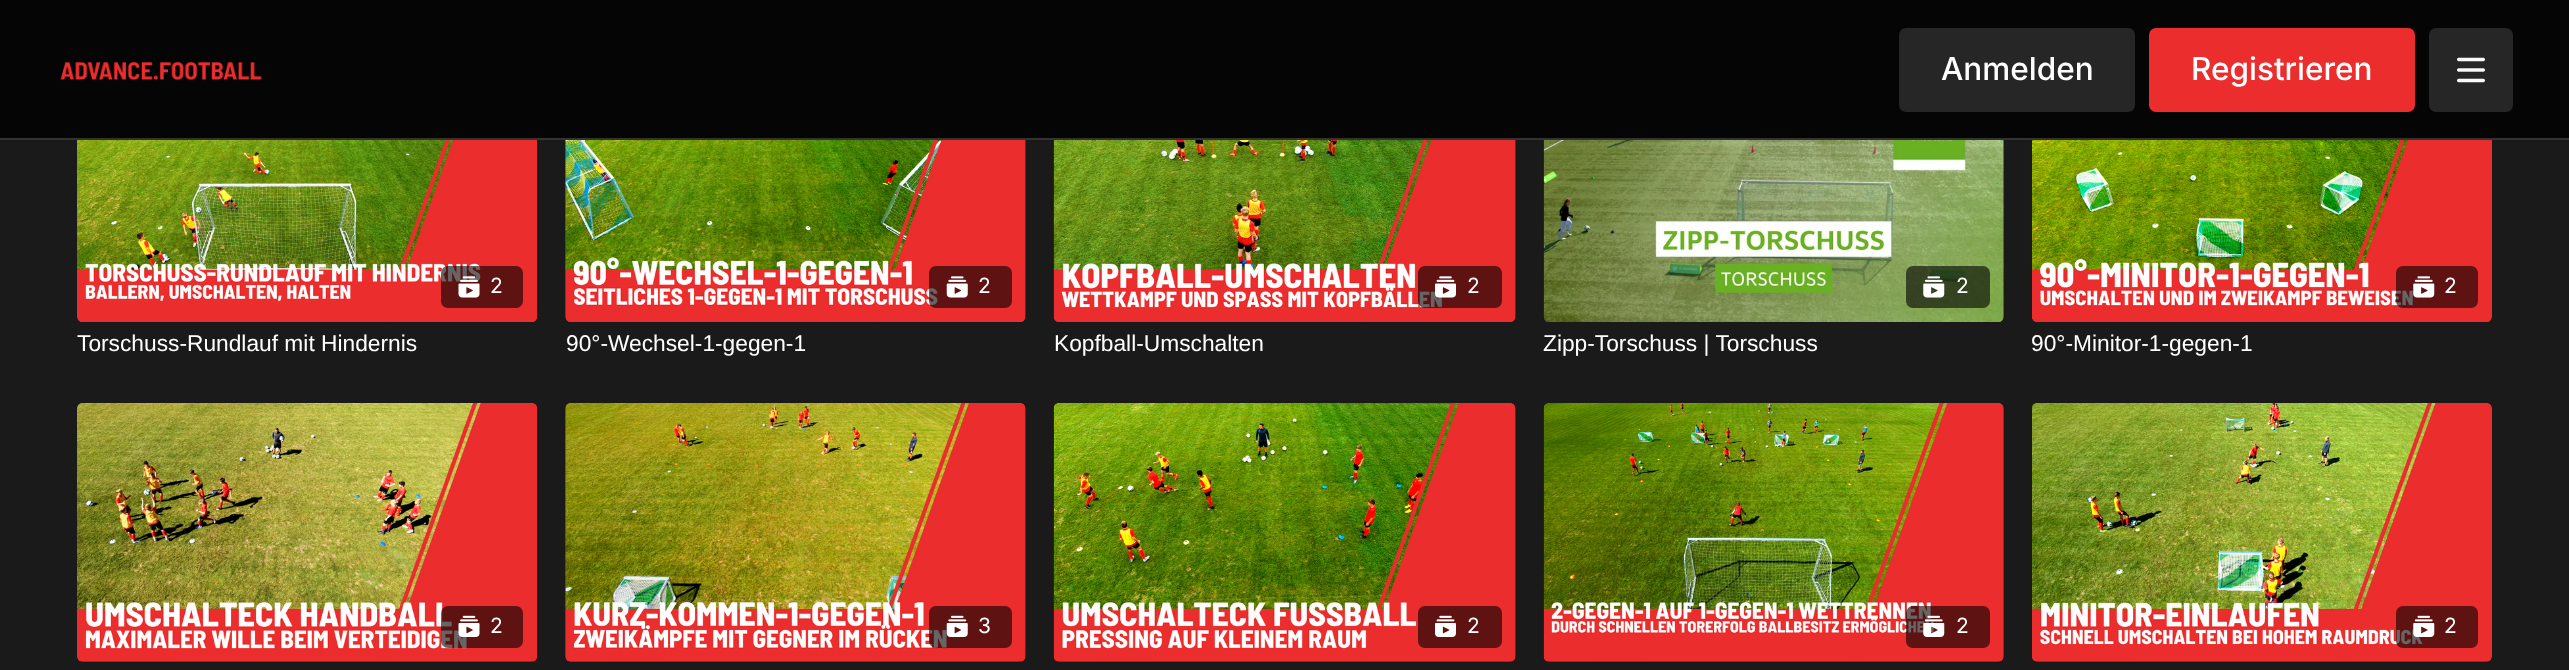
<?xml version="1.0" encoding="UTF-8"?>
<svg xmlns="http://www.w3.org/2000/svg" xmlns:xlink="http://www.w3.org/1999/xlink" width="2569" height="670">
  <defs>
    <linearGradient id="g1" gradientUnits="userSpaceOnUse" x1="565" y1="193" x2="1026" y2="192"><stop offset="0.08" stop-color="#383838" /><stop offset="0.18" stop-color="#353535" /><stop offset="0.33" stop-color="#333333" /></linearGradient>
    <linearGradient id="g2" gradientUnits="userSpaceOnUse" x1="1054" y1="193" x2="1516" y2="192"><stop offset="0.08" stop-color="#383838" /><stop offset="0.18" stop-color="#353535" /><stop offset="0.33" stop-color="#333333" /></linearGradient>
    <linearGradient id="g3" gradientUnits="userSpaceOnUse" x1="1544" y1="193" x2="2004" y2="192"><stop offset="0.08" stop-color="#383838" /><stop offset="0.18" stop-color="#353535" /><stop offset="0.33" stop-color="#333333" /></linearGradient>
    <linearGradient id="g4" gradientUnits="userSpaceOnUse" x1="77" y1="532" x2="537" y2="532"><stop offset="0.08" stop-color="#383838" /><stop offset="0.18" stop-color="#353535" /><stop offset="0.33" stop-color="#333333" /></linearGradient>
    <linearGradient id="g5" gradientUnits="userSpaceOnUse" x1="565" y1="532" x2="1026" y2="532"><stop offset="0.08" stop-color="#383838" /><stop offset="0.18" stop-color="#353535" /><stop offset="0.33" stop-color="#333333" /></linearGradient>
    <linearGradient id="g6" gradientUnits="userSpaceOnUse" x1="1054" y1="532" x2="1516" y2="532"><stop offset="0.08" stop-color="#383838" /><stop offset="0.18" stop-color="#353535" /><stop offset="0.33" stop-color="#333333" /></linearGradient>
    <linearGradient id="g7" gradientUnits="userSpaceOnUse" x1="1544" y1="532" x2="2004" y2="532"><stop offset="0.08" stop-color="#383838" /><stop offset="0.18" stop-color="#353535" /><stop offset="0.33" stop-color="#333333" /></linearGradient>
    <linearGradient id="g8" gradientUnits="userSpaceOnUse" x1="2032" y1="532" x2="2492" y2="532"><stop offset="0.08" stop-color="#383838" /><stop offset="0.18" stop-color="#353535" /><stop offset="0.33" stop-color="#333333" /></linearGradient>
  </defs>
  <rect width="100%" height="100%" fill="#1a1a1a" />
  <rect x="565" y="63" width="461" height="259" rx="7" fill="url(#g1)" />
  <rect x="1054" y="63" width="462" height="259" rx="7" fill="url(#g2)" />
  <rect x="1544" y="63" width="460" height="259" rx="7" fill="url(#g3)" />
  <rect width="2569" height="138" fill="#050505" />
  <rect y="138" width="2569" height="2" fill="#333333" />
  <image x="60" y="61" width="202" height="19" xlink:href="image1.png" />
  <rect x="1899" y="28" width="236" height="84" rx="7" fill="#262626" />
  <rect x="2149" y="28" width="266" height="84" rx="7" fill="#eb2d2d" />
  <rect x="2429" y="28" width="84" height="84" rx="7" fill="#262626" />
  <image x="2457" y="57" width="28" height="26" xlink:href="image2.png" />
  <image x="77" y="140" width="460" height="182" xlink:href="image3.png" />
  <rect x="441" y="266" width="82" height="42" rx="7" fill="#000000" fill-opacity="0.6" />
  <image x="458" y="276" width="22" height="22" xlink:href="image4.png" />
  <image x="565" y="140" width="461" height="182" xlink:href="image5.png" />
  <rect x="929" y="266" width="83" height="42" rx="7" fill="#000000" fill-opacity="0.6" />
  <image x="946" y="276" width="22" height="22" xlink:href="image6.png" />
  <image x="1053" y="140" width="463" height="182" xlink:href="image7.png" />
  <rect x="1418" y="266" width="84" height="42" rx="7" fill="#000000" fill-opacity="0.6" />
  <image x="1435" y="276" width="21" height="22" xlink:href="image8.png" />
  <image x="1543" y="140" width="461" height="182" xlink:href="image9.png" />
  <rect x="1906" y="266" width="84" height="42" rx="7" fill="#000000" fill-opacity="0.6" />
  <image x="1923" y="276" width="22" height="22" xlink:href="image10.png" />
  <image x="2032" y="140" width="460" height="182" xlink:href="image11.png" />
  <rect x="2396" y="266" width="82" height="42" rx="7" fill="#000000" fill-opacity="0.6" />
  <image x="2413" y="276" width="22" height="22" xlink:href="image12.png" />
  <rect x="77" y="403" width="460" height="259" rx="7" fill="url(#g4)" />
  <image x="77" y="403" width="460" height="259" xlink:href="image13.png" />
  <rect x="441" y="606" width="82" height="42" rx="7" fill="#000000" fill-opacity="0.6" />
  <image x="458" y="615" width="22" height="22" xlink:href="image14.png" />
  <rect x="565" y="403" width="461" height="259" rx="7" fill="url(#g5)" />
  <image x="565" y="403" width="461" height="259" xlink:href="image15.png" />
  <rect x="929" y="606" width="83" height="42" rx="7" fill="#000000" fill-opacity="0.6" />
  <image x="946" y="615" width="22" height="22" xlink:href="image16.png" />
  <rect x="1054" y="403" width="462" height="259" rx="7" fill="url(#g6)" />
  <image x="1053" y="403" width="463" height="259" xlink:href="image17.png" />
  <rect x="1418" y="606" width="84" height="42" rx="7" fill="#5e1212" />
  <image x="1435" y="615" width="21" height="22" xlink:href="image18.png" />
  <rect x="1544" y="403" width="460" height="259" rx="7" fill="url(#g7)" />
  <image x="1543" y="403" width="461" height="259" xlink:href="image19.png" />
  <rect x="1906" y="606" width="84" height="42" rx="7" fill="#000000" fill-opacity="0.6" />
  <image x="1923" y="615" width="22" height="22" xlink:href="image20.png" />
  <rect x="2032" y="403" width="460" height="259" rx="7" fill="url(#g8)" />
  <image x="2032" y="403" width="460" height="259" xlink:href="image21.png" />
  <rect x="2396" y="606" width="82" height="42" rx="7" fill="#000000" fill-opacity="0.6" />
  <image x="2413" y="615" width="22" height="22" xlink:href="image22.png" />
  <text x="1941" y="80" style="font-family: Inter; font-size: 31.5px; font-weight: 500; fill: #ffffff">Anmelden</text>
  <text x="2191" y="80" style="font-family: Inter; font-size: 31.5px; font-weight: 500; fill: #ffffff">Registrieren</text>
  <text x="490" y="293" style="font-family: Inter; font-size: 21px; fill: #ffffff">2</text>
  <text x="77" y="351" style="font-family: Liberation Sans; font-size: 22.75px; fill: #ffffff">Torschuss-Rundlauf mit Hindernis</text>
  <text x="978" y="293" style="font-family: Inter; font-size: 21px; fill: #ffffff">2</text>
  <text x="566" y="351" style="font-family: Liberation Sans; font-size: 22.75px; fill: #ffffff">90°-Wechsel-1-gegen-1</text>
  <text x="1467" y="293" style="font-family: Inter; font-size: 21px; fill: #ffffff">2</text>
  <text x="1054" y="351" style="font-family: Liberation Sans; font-size: 22.75px; fill: #ffffff">Kopfball-Umschalten</text>
  <text x="1956" y="293" style="font-family: Inter; font-size: 21px; fill: #ffffff">2</text>
  <text x="1543" y="351" style="font-family: Liberation Sans; font-size: 22.75px; fill: #ffffff">Zipp-Torschuss | Torschuss</text>
  <text x="2444" y="293" style="font-family: Inter; font-size: 21px; fill: #ffffff">2</text>
  <text x="2031" y="351" style="font-family: Liberation Sans; font-size: 22.75px; fill: #ffffff">90°-Minitor-1-gegen-1</text>
  <text x="490" y="633" style="font-family: Inter; font-size: 21px; fill: #ffffff">2</text>
  <text x="978" y="633" style="font-family: Inter; font-size: 21px; fill: #ffffff">3</text>
  <text x="1467" y="633" style="font-family: Inter; font-size: 21px; fill: #ffffff">2</text>
  <text x="1956" y="633" style="font-family: Inter; font-size: 21px; fill: #ffffff">2</text>
  <text x="2444" y="633" style="font-family: Inter; font-size: 21px; fill: #ffffff">2</text>
</svg>
